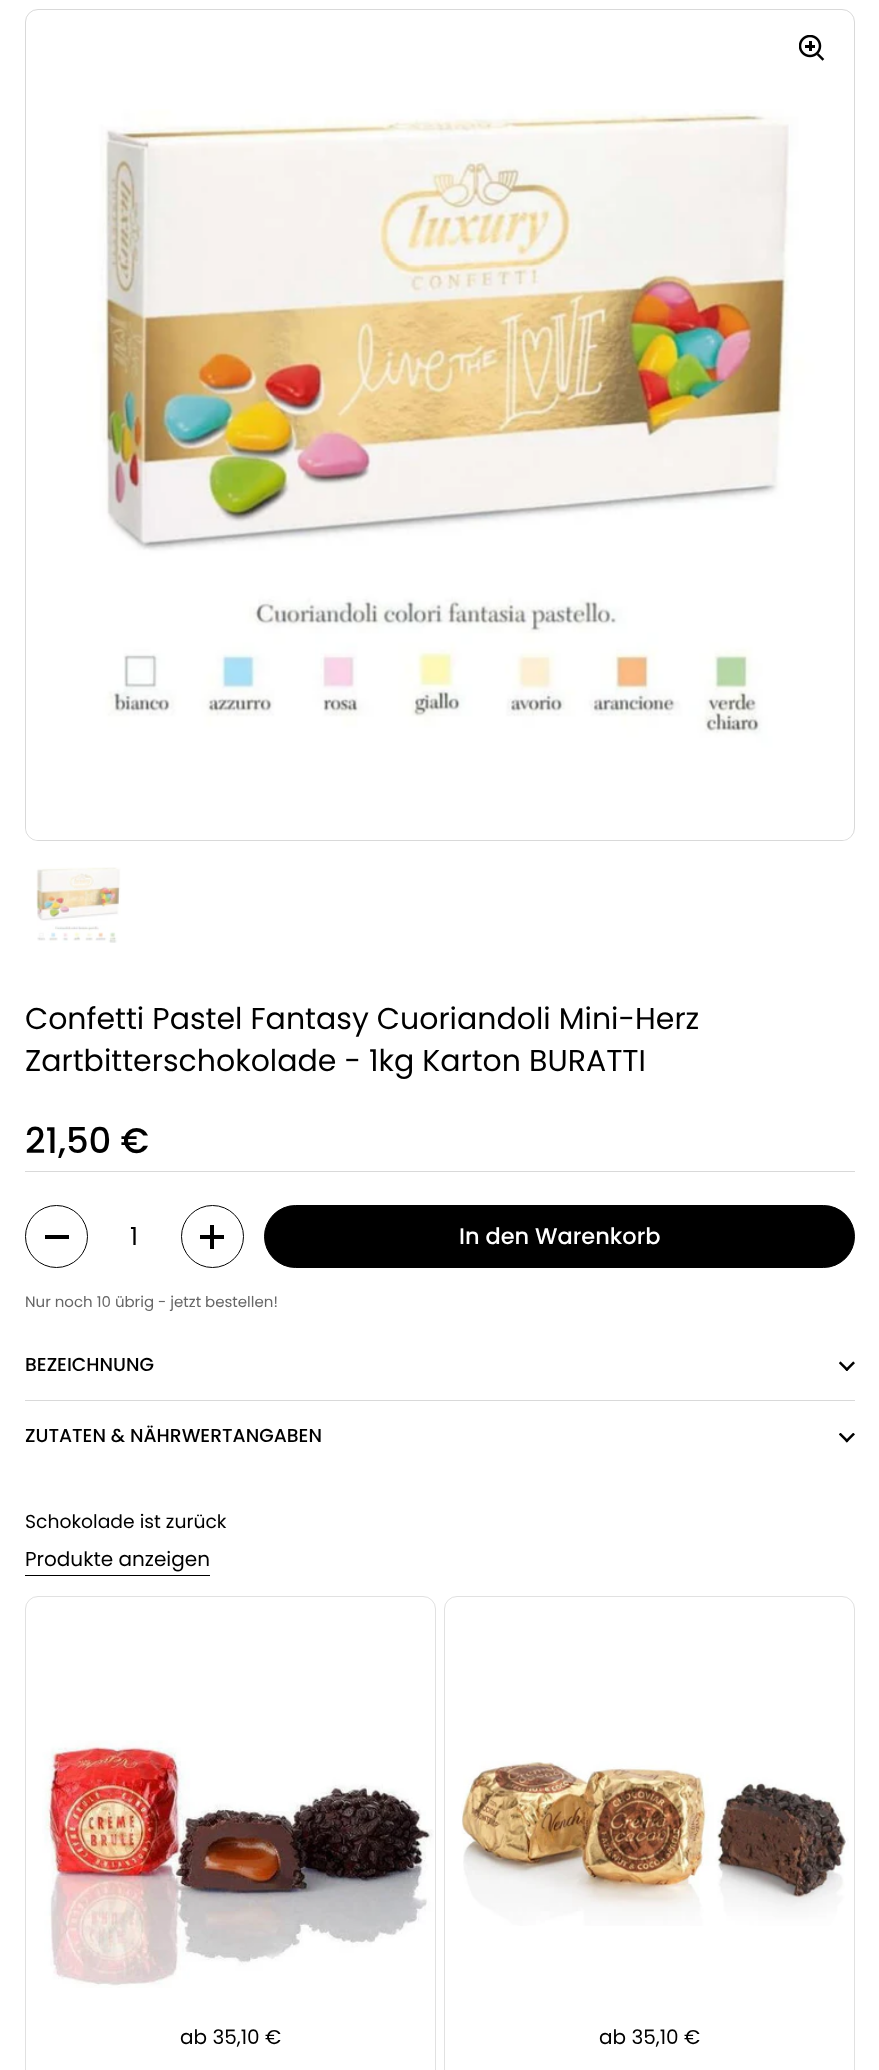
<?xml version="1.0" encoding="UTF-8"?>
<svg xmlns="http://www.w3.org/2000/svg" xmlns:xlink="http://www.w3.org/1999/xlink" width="879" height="2070">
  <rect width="100%" height="100%" fill="#ffffff" />
  <rect x="25.5" y="9.5" width="829" height="831" rx="12.5" fill="none" stroke="#d9d9d9" />
  <image x="799" y="35" width="26" height="26" xlink:href="image1.png" />
  <image x="26" y="109" width="825" height="731" xlink:href="image2.png" />
  <image x="36" y="867" width="85" height="76" xlink:href="image3.png" />
  <rect x="25" y="1171" width="830" height="1" fill="#d9d9d9" />
  <circle cx="56.5" cy="1236.5" r="31" fill="none" stroke="#000000" />
  <rect x="45" y="1235" width="24" height="4" fill="#000000" />
  <circle cx="212.5" cy="1236.5" r="31" fill="none" stroke="#000000" />
  <rect x="210" y="1225" width="4" height="24" fill="#000000" />
  <rect x="200" y="1235" width="24" height="4" fill="#000000" />
  <rect x="264.5" y="1205.5" width="590" height="62" rx="31" fill="#000000" stroke="#000000" />
  <image x="839" y="1361" width="16" height="10" xlink:href="image4.png" />
  <rect x="25" y="1400" width="830" height="1" fill="#d9d9d9" />
  <image x="839" y="1433" width="16" height="10" xlink:href="image5.png" />
  <rect x="25" y="1575" width="185" height="1" fill="#000000" />
  <rect x="25.5" y="1596.5" width="410" height="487" rx="12.5" fill="none" stroke="#e1e1e1" />
  <image x="42" y="1740" width="392" height="248" xlink:href="image6.png" />
  <rect x="444.5" y="1596.5" width="410" height="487" rx="12.5" fill="none" stroke="#e1e1e1" />
  <image x="461" y="1760" width="388" height="166" xlink:href="image7.png" />
  <text x="25" y="1029" style="font-family: Poppins; font-size: 30px; fill: #000000">Confetti Pastel Fantasy Cuoriandoli Mini-Herz</text>
  <text x="25" y="1071" style="font-family: Poppins; font-size: 30px; fill: #000000">Zartbitterschokolade - 1kg Karton BURATTI</text>
  <text x="25" y="1153" style="font-family: Poppins; font-size: 35.5px; font-weight: 500; fill: #000000">21,50 €</text>
  <text x="130" y="1245" style="font-family: Poppins; font-size: 25px; fill: #000000">1</text>
  <text x="459" y="1244" style="font-family: Poppins; font-size: 22.5px; font-weight: 500; fill: #ffffff">In den Warenkorb</text>
  <text x="25" y="1307" style="font-family: Poppins; font-size: 15px; fill: #666666">Nur noch 10 übrig - jetzt bestellen!</text>
  <text x="25" y="1371" style="font-family: Poppins; font-size: 18.75px; font-weight: 500; fill: #000000">BEZEICHNUNG</text>
  <text x="25" y="1442" style="font-family: Poppins; font-size: 18.75px; font-weight: 500; fill: #000000">ZUTATEN &amp; NÄHRWERTANGABEN</text>
  <text x="25" y="1528" style="font-family: Poppins; font-size: 18.75px; fill: #000000">Schokolade ist zurück</text>
  <text x="25" y="1566" style="font-family: Poppins; font-size: 20px; fill: #000000">Produkte anzeigen</text>
  <text x="180" y="2044" style="font-family: Poppins; font-size: 20px; fill: #000000">ab 35,10 €</text>
  <text x="599" y="2044" style="font-family: Poppins; font-size: 20px; fill: #000000">ab 35,10 €</text>
</svg>
